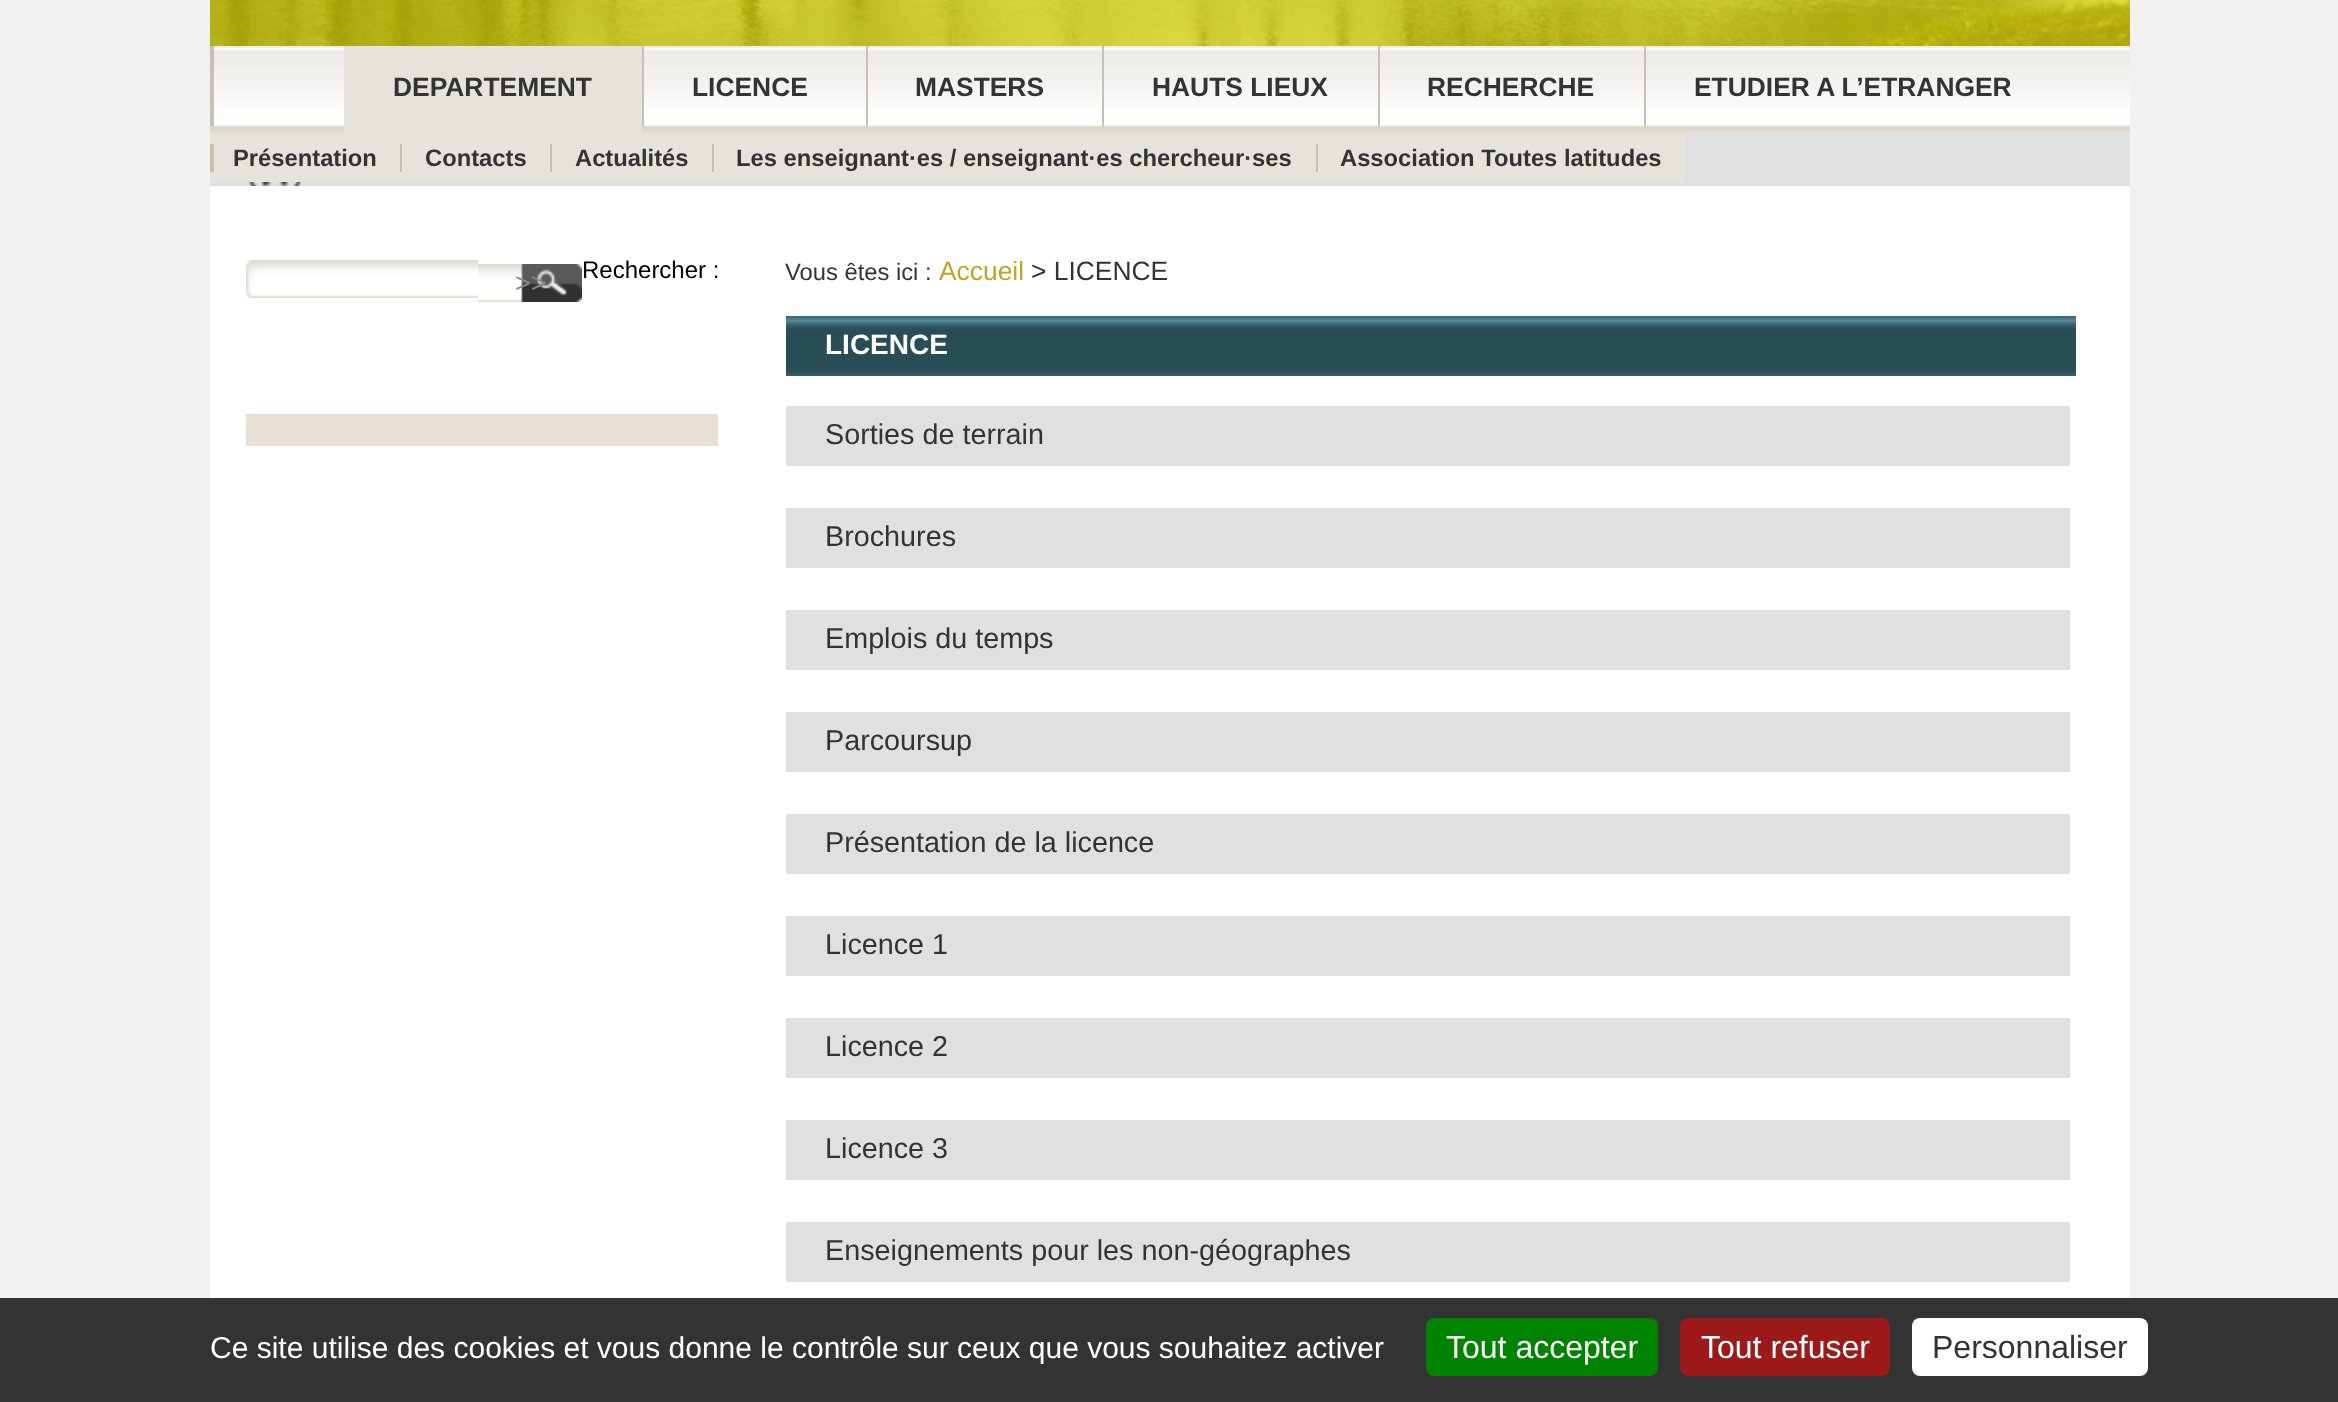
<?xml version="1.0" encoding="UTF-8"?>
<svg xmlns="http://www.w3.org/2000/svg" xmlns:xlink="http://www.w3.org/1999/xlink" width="2338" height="1402">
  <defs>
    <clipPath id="clip1"><rect x="190" y="1330" width="1214" height="34" /></clipPath>
  </defs>
  <rect width="100%" height="100%" fill="#f1f1f1" />
  <image x="210" y="0" width="1920" height="46" xlink:href="image1.png" />
  <rect x="210" y="134" width="1920" height="52" fill="#e0e0e0" />
  <image x="210" y="46" width="1920" height="88" xlink:href="image2.png" />
  <image x="210" y="46" width="4" height="81" xlink:href="image3.png" />
  <image x="248" y="182" width="54" height="4" xlink:href="image4.png" />
  <rect x="344" y="46" width="298" height="88" fill="#e5e3db" />
  <rect x="210" y="134" width="1476" height="48" fill="#e5e3db" />
  <rect x="210" y="144" width="4" height="28" fill="#c5c0ab" />
  <rect x="400" y="144" width="2" height="28" fill="#c5c0ab" />
  <rect x="550" y="144" width="2" height="28" fill="#c5c0ab" />
  <rect x="712" y="144" width="2" height="28" fill="#c5c0ab" />
  <rect x="1316" y="144" width="2" height="28" fill="#c5c0ab" />
  <image x="642" y="46" width="2" height="81" xlink:href="image5.png" />
  <image x="866" y="46" width="2" height="81" xlink:href="image5.png" />
  <image x="1102" y="46" width="2" height="81" xlink:href="image5.png" />
  <image x="1378" y="46" width="2" height="81" xlink:href="image5.png" />
  <image x="1644" y="46" width="2" height="81" xlink:href="image5.png" />
  <rect x="210" y="186" width="1920" height="1112" fill="#ffffff" />
  <image x="246" y="260" width="232" height="38" xlink:href="image6.png" />
  <image x="478" y="264" width="104" height="38" xlink:href="image7.png" />
  <rect x="246" y="414" width="472" height="32" fill="#e5e0d3" />
  <image x="786" y="316" width="1290" height="60" xlink:href="image8.png" />
  <rect x="786" y="406" width="1284" height="60" fill="#e0e0e0" />
  <rect x="786" y="508" width="1284" height="60" fill="#e0e0e0" />
  <rect x="786" y="610" width="1284" height="60" fill="#e0e0e0" />
  <rect x="786" y="712" width="1284" height="60" fill="#e0e0e0" />
  <rect x="786" y="814" width="1284" height="60" fill="#e0e0e0" />
  <rect x="786" y="916" width="1284" height="60" fill="#e0e0e0" />
  <rect x="786" y="1018" width="1284" height="60" fill="#e0e0e0" />
  <rect x="786" y="1120" width="1284" height="60" fill="#e0e0e0" />
  <rect x="786" y="1222" width="1284" height="60" fill="#e0e0e0" />
  <rect y="1298" width="2338" height="104" fill="#333333" />
  <rect x="1426" y="1318" width="232" height="58" rx="8" fill="#008300" />
  <rect x="1680" y="1318" width="210" height="58" rx="8" fill="#9c1a1a" />
  <rect x="1912" y="1318" width="236" height="58" rx="8" fill="#ffffff" />
  <text x="393" y="96" style="font-family: Liberation Sans; font-size: 26.4px; font-weight: bold; fill: #333333">DEPARTEMENT</text>
  <text x="233" y="166" style="font-family: Liberation Sans; font-size: 23.75px; font-weight: bold; fill: #333333">Présentation</text>
  <text x="425" y="166" style="font-family: Liberation Sans; font-size: 23.75px; font-weight: bold; fill: #333333">Contacts</text>
  <text x="575" y="166" style="font-family: Liberation Sans; font-size: 23.75px; font-weight: bold; fill: #333333">Actualités</text>
  <text x="736" y="166" style="font-family: Liberation Sans; font-size: 23.75px; font-weight: bold; fill: #333333">Les enseignant·es / enseignant·es chercheur·ses</text>
  <text x="1340" y="166" style="font-family: Liberation Sans; font-size: 23.75px; font-weight: bold; fill: #333333">Association Toutes latitudes</text>
  <text x="692" y="96" style="font-family: Liberation Sans; font-size: 26.4px; font-weight: bold; fill: #333333">LICENCE </text>
  <text x="915" y="96" style="font-family: Liberation Sans; font-size: 26.4px; font-weight: bold; fill: #333333">MASTERS </text>
  <text x="1152" y="96" style="font-family: Liberation Sans; font-size: 26.4px; font-weight: bold; fill: #333333">HAUTS LIEUX</text>
  <text x="1427" y="96" style="font-family: Liberation Sans; font-size: 26.4px; font-weight: bold; fill: #333333">RECHERCHE</text>
  <text x="1694" y="96" style="font-family: Liberation Sans; font-size: 26.4px; font-weight: bold; fill: #333333">ETUDIER A L’ETRANGER</text>
  <text x="582" y="278" style="font-family: Liberation Sans; font-size: 24px; fill: #000000">Rechercher :</text>
  <text x="515" y="292" style="font-family: Liberation Sans; font-size: 27px; fill: #888888">&gt;&gt;</text>
  <text x="785" y="280" style="font-family: Liberation Sans; font-size: 23.75px; fill: #333333">Vous êtes ici :</text>
  <text x="939" y="280" style="font-family: Liberation Sans; font-size: 26.4px; fill: #c2a326">Accueil</text>
  <text x="1031" y="280" style="font-family: Liberation Sans; font-size: 26.4px; fill: #333333">&gt; LICENCE </text>
  <text x="825" y="354" style="font-family: Liberation Sans; font-size: 28px; font-weight: bold; fill: #ffffff">LICENCE </text>
  <text x="825" y="444" style="font-family: Liberation Sans; font-size: 28.75px; fill: #333333">Sorties de terrain</text>
  <text x="825" y="546" style="font-family: Liberation Sans; font-size: 28.75px; fill: #333333">Brochures</text>
  <text x="825" y="648" style="font-family: Liberation Sans; font-size: 28.75px; fill: #333333">Emplois du temps</text>
  <text x="825" y="750" style="font-family: Liberation Sans; font-size: 28.75px; fill: #333333">Parcoursup</text>
  <text x="825" y="852" style="font-family: Liberation Sans; font-size: 28.75px; fill: #333333">Présentation de la licence</text>
  <text x="825" y="954" style="font-family: Liberation Sans; font-size: 28.75px; fill: #333333">Licence 1</text>
  <text x="825" y="1056" style="font-family: Liberation Sans; font-size: 28.75px; fill: #333333">Licence 2</text>
  <text x="825" y="1158" style="font-family: Liberation Sans; font-size: 28.75px; fill: #333333">Licence 3</text>
  <text x="825" y="1260" style="font-family: Liberation Sans; font-size: 28.75px; fill: #333333">Enseignements pour les non-géographes</text>
  <g clip-path="url(#clip1)">
    <text x="210" y="1358" style="font-family: Liberation Sans; font-size: 30px; fill: #ffffff">Ce site utilise des cookies et vous donne le contrôle sur ceux que vous souhaitez activer</text>
  </g>
  <text x="1446" y="1358" style="font-family: Liberation Sans; font-size: 32px; fill: #ffffff">Tout accepter</text>
  <text x="1701" y="1358" style="font-family: Liberation Sans; font-size: 32px; fill: #ffffff">Tout refuser</text>
  <text x="1932" y="1358" style="font-family: Liberation Sans; font-size: 32px; fill: #333333">Personnaliser</text>
</svg>
